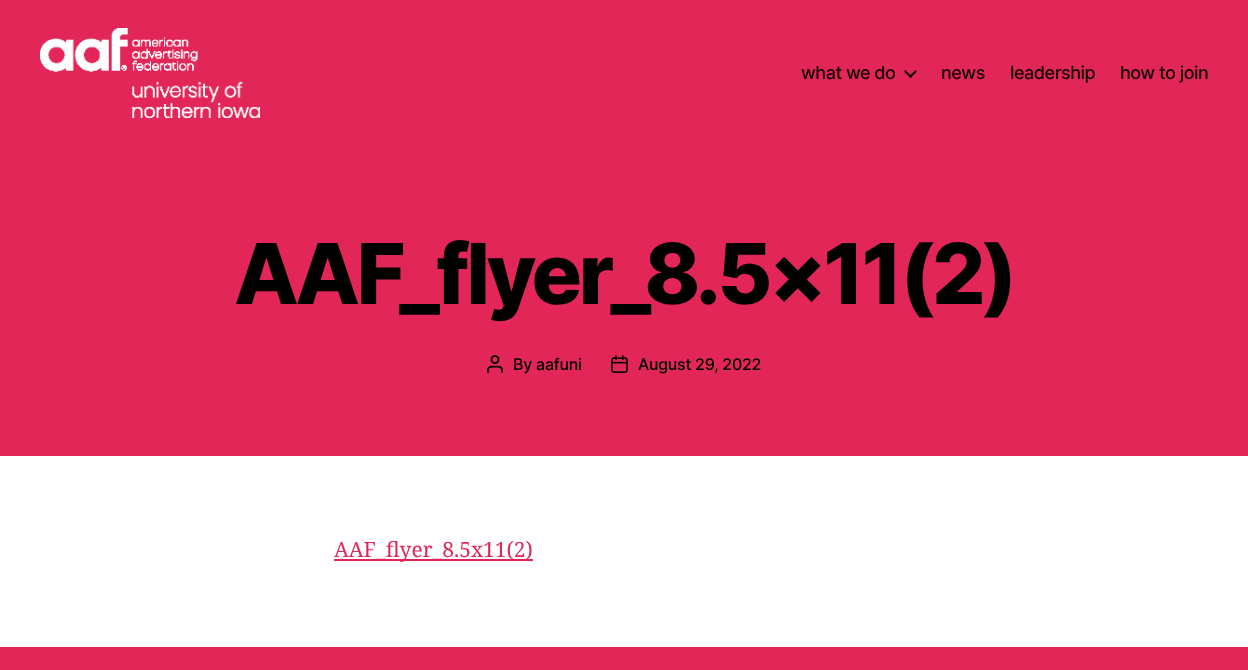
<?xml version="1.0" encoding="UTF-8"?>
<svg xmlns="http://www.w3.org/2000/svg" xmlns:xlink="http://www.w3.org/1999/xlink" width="1248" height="670">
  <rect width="100%" height="100%" fill="#ffffff" />
  <rect width="1248" height="456" fill="#e22658" />
  <image x="40" y="28" width="220" height="90" xlink:href="image1.png" />
  <path d="M 904 71.5 l 1.5 -1.5 l 6.5 6.5 l -1.5 1.5 z" fill="#140004" />
  <path d="M 909 76.5 l 6.5 -6.5 l 1.5 1.5 l -6.5 6.5 z" fill="#140004" />
  <image x="487" y="355" width="16" height="18" xlink:href="image2.png" />
  <image x="611" y="355" width="17" height="18" xlink:href="image3.png" />
  <rect x="334" y="559" width="199" height="2" fill="#e22658" />
  <rect y="647" width="1248" height="23" fill="#e22658" />
  <text x="801" y="79" style="font-family: Inter; font-size: 18px; font-weight: 500; letter-spacing: -0.5px; fill: #140004">what we do</text>
  <text x="941" y="79" style="font-family: Inter; font-size: 18px; font-weight: 500; letter-spacing: -0.5px; fill: #140004">news</text>
  <text x="1010" y="79" style="font-family: Inter; font-size: 18px; font-weight: 500; letter-spacing: -0.5px; fill: #140004">leadership</text>
  <text x="1120" y="79" style="font-family: Inter; font-size: 18px; font-weight: 500; letter-spacing: -0.5px; fill: #140004">how to join</text>
  <text x="234" y="304" style="font-family: Inter; font-size: 84px; font-weight: 800; letter-spacing: -3.5px; fill: #000000">AAF_flyer_8.5×11(2)</text>
  <text x="513" y="370" style="font-family: Inter; font-size: 16px; font-weight: 500; letter-spacing: -0.25px; fill: #000000">By aafuni</text>
  <text x="638" y="370" style="font-family: Inter; font-size: 16px; font-weight: 500; letter-spacing: -0.25px; fill: #000000">August 29, 2022</text>
  <text x="334" y="557" style="font-family: Noto Serif; font-size: 21px; fill: #e22658">AAF_flyer_8.5x11(2)</text>
</svg>
